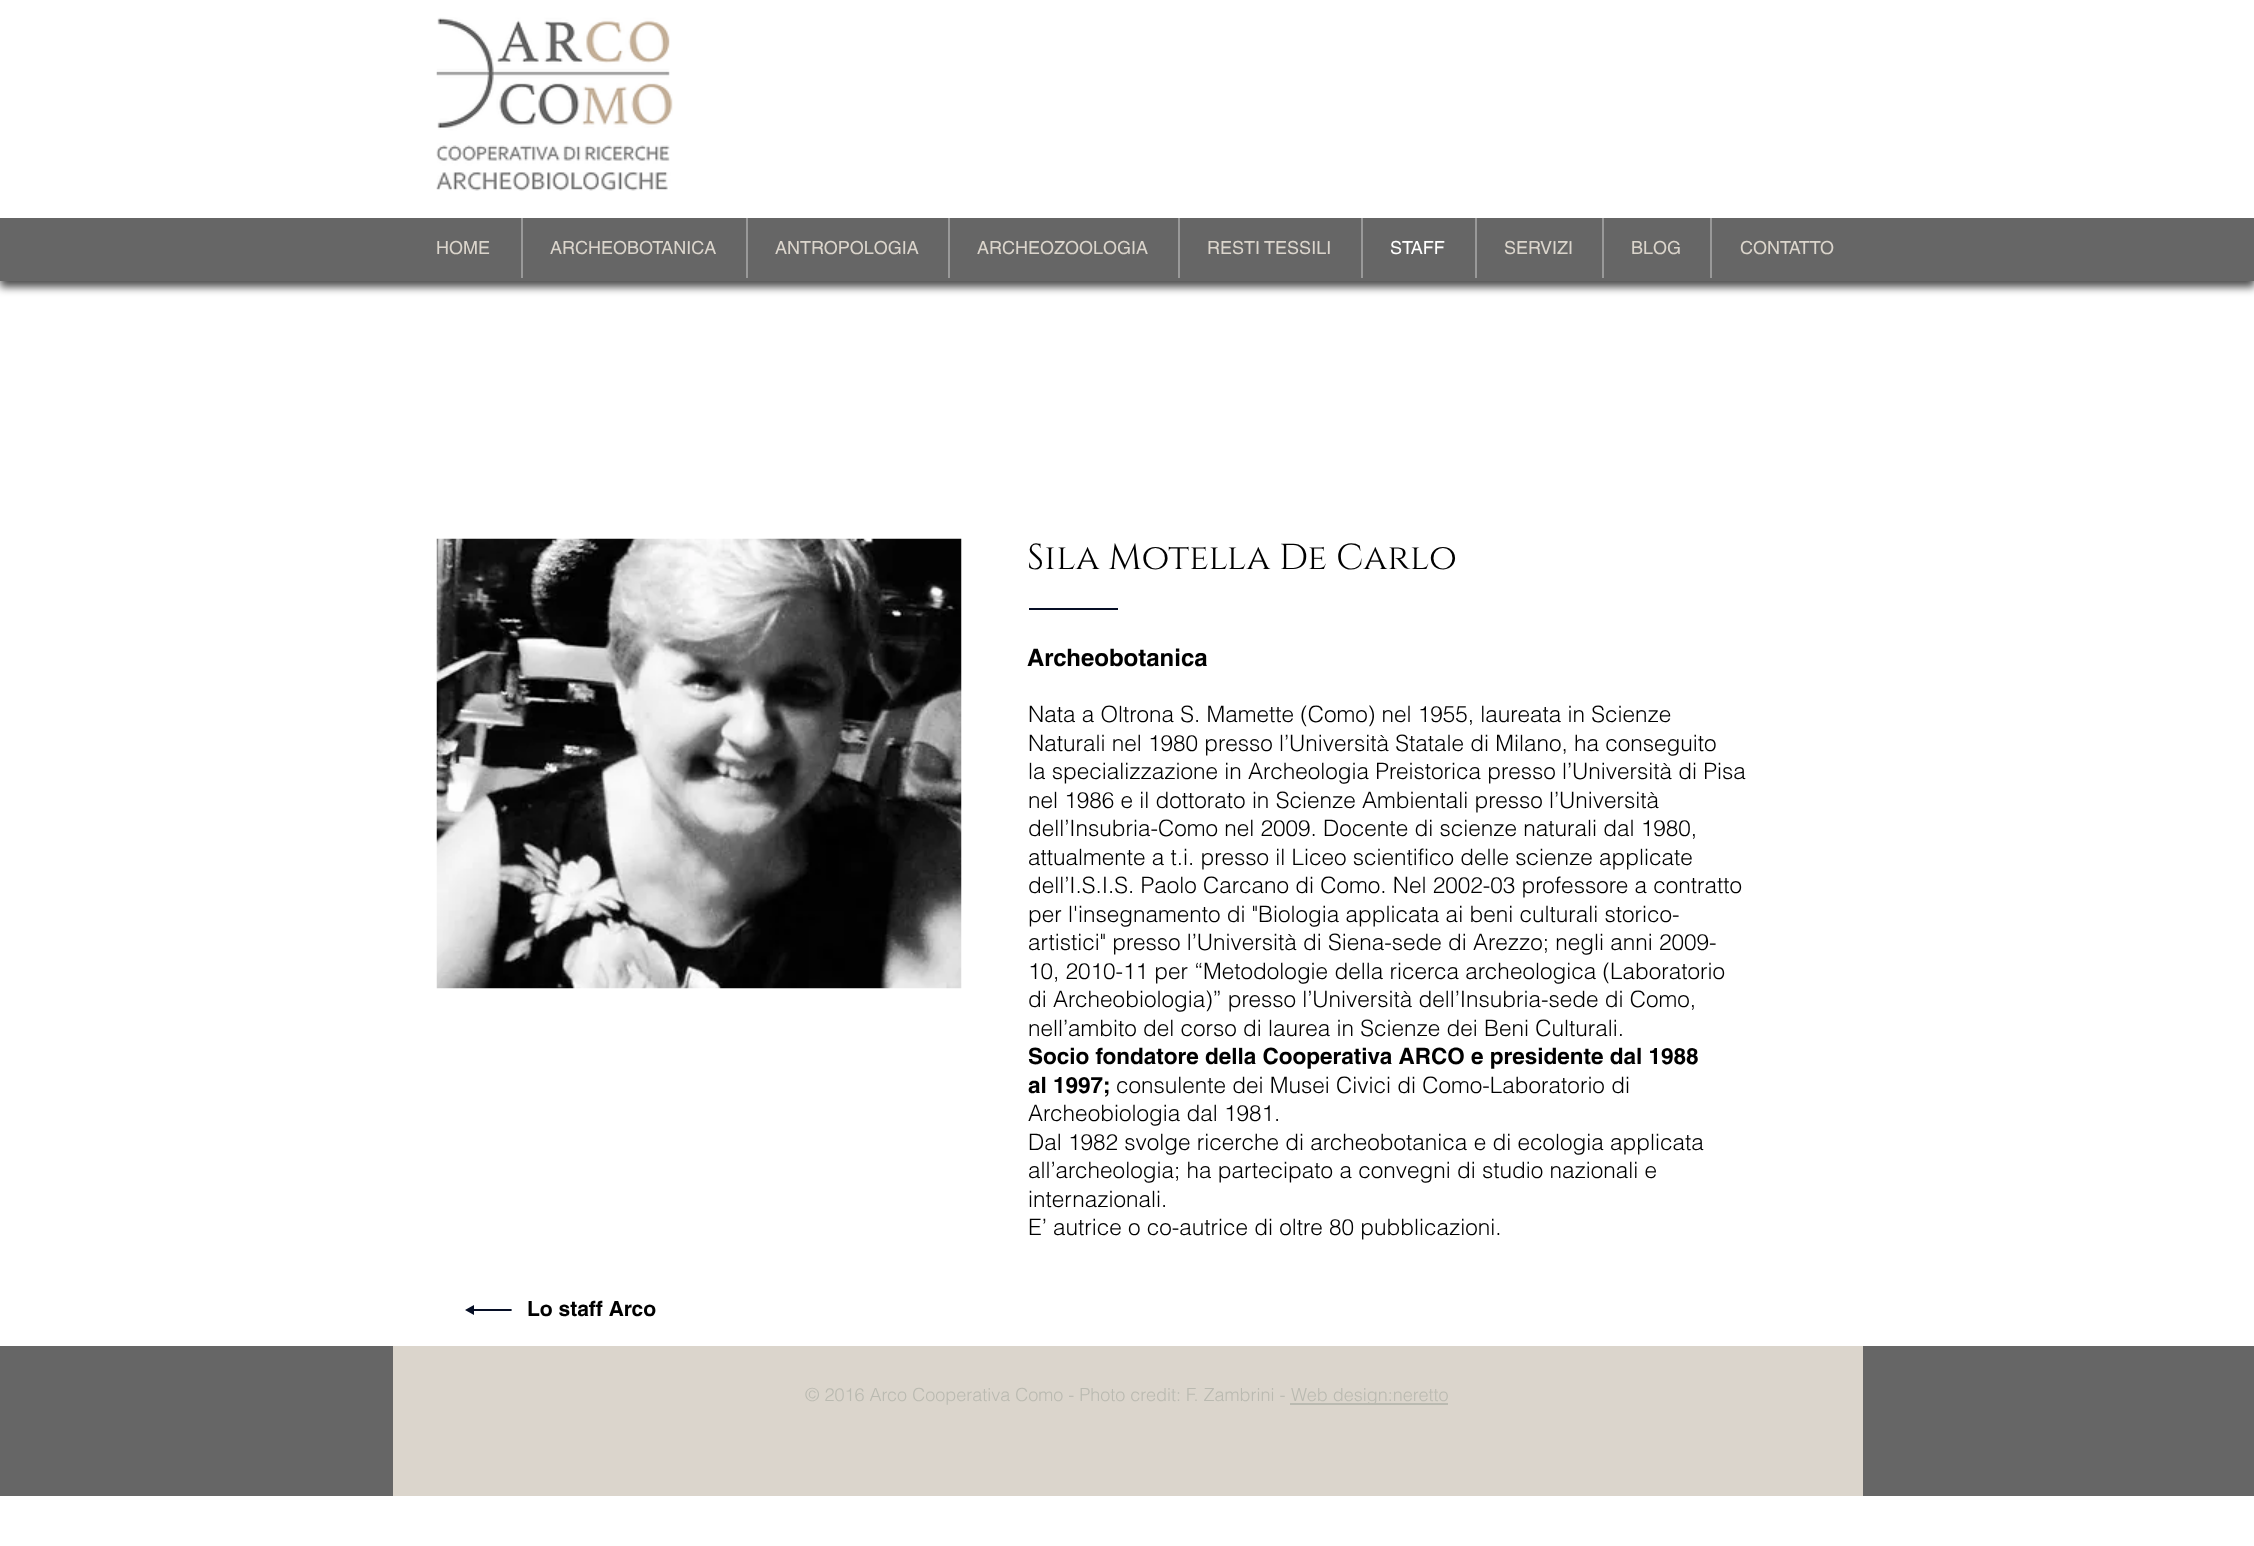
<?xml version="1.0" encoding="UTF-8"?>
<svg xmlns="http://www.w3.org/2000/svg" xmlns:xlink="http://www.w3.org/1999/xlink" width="2254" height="1546">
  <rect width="100%" height="100%" fill="#ffffff" />
  <rect y="9" width="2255" height="278" fill="#000000" fill-opacity="0.7" filter="blur(4px)" />
  <rect width="2254" height="218" fill="#ffffff" />
  <image x="436" y="17" width="237" height="174" xlink:href="image1.png" />
  <rect y="218" width="2254" height="63" fill="#666666" />
  <rect x="521" y="218" width="2" height="60" fill="#999999" />
  <rect x="746" y="218" width="2" height="60" fill="#999999" />
  <rect x="948" y="218" width="2" height="60" fill="#999999" />
  <rect x="1178" y="218" width="2" height="60" fill="#999999" />
  <rect x="1361" y="218" width="2" height="60" fill="#999999" />
  <rect x="1475" y="218" width="2" height="60" fill="#999999" />
  <rect x="1602" y="218" width="2" height="60" fill="#999999" />
  <rect x="1710" y="218" width="2" height="60" fill="#999999" />
  <image x="436" y="538" width="526" height="451" xlink:href="image2.png" />
  <rect x="1029" y="608" width="89" height="2" fill="#060e25" />
  <path d="M 511 1309 h -37 v -4 l -9 5 l 9 5 v -4 h 37 c 1 0 1 -2 0 -2 z" fill="#060e25" />
  <rect y="1346" width="2254" height="150" fill="#666666" />
  <rect x="393" y="1346" width="1470" height="150" fill="#dbd5cc" />
  <rect x="1290" y="1403" width="158" height="2" fill="#babab1" />
  <text x="436" y="254" style="font-family: helvetica; font-size: 18px; fill: #dbd5cc">HOME</text>
  <text x="550" y="254" style="font-family: helvetica; font-size: 18px; fill: #dbd5cc">ARCHEOBOTANICA</text>
  <text x="775" y="254" style="font-family: helvetica; font-size: 18px; fill: #dbd5cc">ANTROPOLOGIA</text>
  <text x="977" y="254" style="font-family: helvetica; font-size: 18px; fill: #dbd5cc">ARCHEOZOOLOGIA</text>
  <text x="1207" y="254" style="font-family: helvetica; font-size: 18px; fill: #dbd5cc">RESTI TESSILI</text>
  <text x="1390" y="254" style="font-family: helvetica; font-size: 18px; fill: #ffffff">STAFF</text>
  <text x="1504" y="254" style="font-family: helvetica; font-size: 18px; fill: #dbd5cc">SERVIZI</text>
  <text x="1631" y="254" style="font-family: helvetica; font-size: 18px; fill: #dbd5cc">BLOG</text>
  <text x="1740" y="254" style="font-family: helvetica; font-size: 18px; fill: #dbd5cc">CONTATTO</text>
  <text x="1027" y="569" style="font-family: Cinzel; font-size: 36px; fill: #000000">Sila Motella De Carlo</text>
  <text x="1027" y="666" style="font-family: helvetica; font-size: 24px; font-weight: bold; fill: #000000">Archeobotanica</text>
  <text x="1028" y="722" style="font-family: helvetica; font-size: 22.5px; font-weight: 300; fill: #000000">Nata a Oltrona S. Mamette (Como) nel 1955, laureata in Scienze</text>
  <text x="1028" y="751" style="font-family: helvetica; font-size: 22.5px; font-weight: 300; fill: #000000">Naturali nel 1980 presso l’Università Statale di Milano, ha conseguito</text>
  <text x="1028" y="779" style="font-family: helvetica; font-size: 22.5px; font-weight: 300; fill: #000000">la specializzazione in Archeologia Preistorica presso l’Università di Pisa</text>
  <text x="1028" y="808" style="font-family: helvetica; font-size: 22.5px; font-weight: 300; fill: #000000">nel 1986 e il dottorato in Scienze Ambientali presso l’Università</text>
  <text x="1028" y="836" style="font-family: helvetica; font-size: 22.5px; font-weight: 300; fill: #000000">dell’Insubria-Como nel 2009. Docente di scienze naturali dal 1980,</text>
  <text x="1028" y="865" style="font-family: helvetica; font-size: 22.5px; font-weight: 300; fill: #000000">attualmente a t.i. presso il Liceo scientifico delle scienze applicate</text>
  <text x="1028" y="893" style="font-family: helvetica; font-size: 22.5px; font-weight: 300; fill: #000000">dell’I.S.I.S. Paolo Carcano di Como. Nel 2002-03 professore a contratto</text>
  <text x="1028" y="922" style="font-family: helvetica; font-size: 22.5px; font-weight: 300; fill: #000000">per l'insegnamento di "Biologia applicata ai beni culturali storico-</text>
  <text x="1028" y="950" style="font-family: helvetica; font-size: 22.5px; font-weight: 300; fill: #000000">artistici" presso l’Università di Siena-sede di Arezzo; negli anni 2009-</text>
  <text x="1028" y="979" style="font-family: helvetica; font-size: 22.5px; font-weight: 300; fill: #000000">10, 2010-11 per “Metodologie della ricerca archeologica (Laboratorio</text>
  <text x="1028" y="1007" style="font-family: helvetica; font-size: 22.5px; font-weight: 300; fill: #000000">di Archeobiologia)” presso l’Università dell’Insubria-sede di Como,</text>
  <text x="1028" y="1036" style="font-family: helvetica; font-size: 22.5px; font-weight: 300; fill: #000000">nell’ambito del corso di laurea in Scienze dei Beni Culturali.</text>
  <text x="1028" y="1064" style="font-family: helvetica; font-size: 22.5px; font-weight: bold; fill: #000000">Socio fondatore della Cooperativa ARCO e presidente dal 1988</text>
  <text x="1028" y="1093" style="font-family: helvetica; font-size: 22.5px; font-weight: bold; fill: #000000">al 1997;</text>
  <text x="1116" y="1093" style="font-family: helvetica; font-size: 22.5px; font-weight: 300; fill: #000000">consulente dei Musei Civici di Como-Laboratorio di</text>
  <text x="1028" y="1121" style="font-family: helvetica; font-size: 22.5px; font-weight: 300; fill: #000000">Archeobiologia dal 1981.</text>
  <text x="1028" y="1150" style="font-family: helvetica; font-size: 22.5px; font-weight: 300; fill: #000000">Dal 1982 svolge ricerche di archeobotanica e di ecologia applicata</text>
  <text x="1028" y="1178" style="font-family: helvetica; font-size: 22.5px; font-weight: 300; fill: #000000">all’archeologia; ha partecipato a convegni di studio nazionali e</text>
  <text x="1028" y="1207" style="font-family: helvetica; font-size: 22.5px; font-weight: 300; fill: #000000">internazionali.</text>
  <text x="1028" y="1235" style="font-family: helvetica; font-size: 22.5px; font-weight: 300; fill: #000000">E’ autrice o co-autrice di oltre 80 pubblicazioni.</text>
  <text x="527" y="1316" style="font-family: helvetica; font-size: 21px; font-weight: bold; fill: #000000">Lo staff Arco</text>
  <text x="805" y="1401" style="font-family: helvetica; font-size: 18px; font-weight: 300; fill: #babab1">© 2016 Arco Cooperativa Como - Photo credit: F. Zambrini -</text>
  <text x="1291" y="1401" style="font-family: helvetica; font-size: 18px; font-weight: 300; fill: #babab1">Web design:neretto</text>
</svg>
